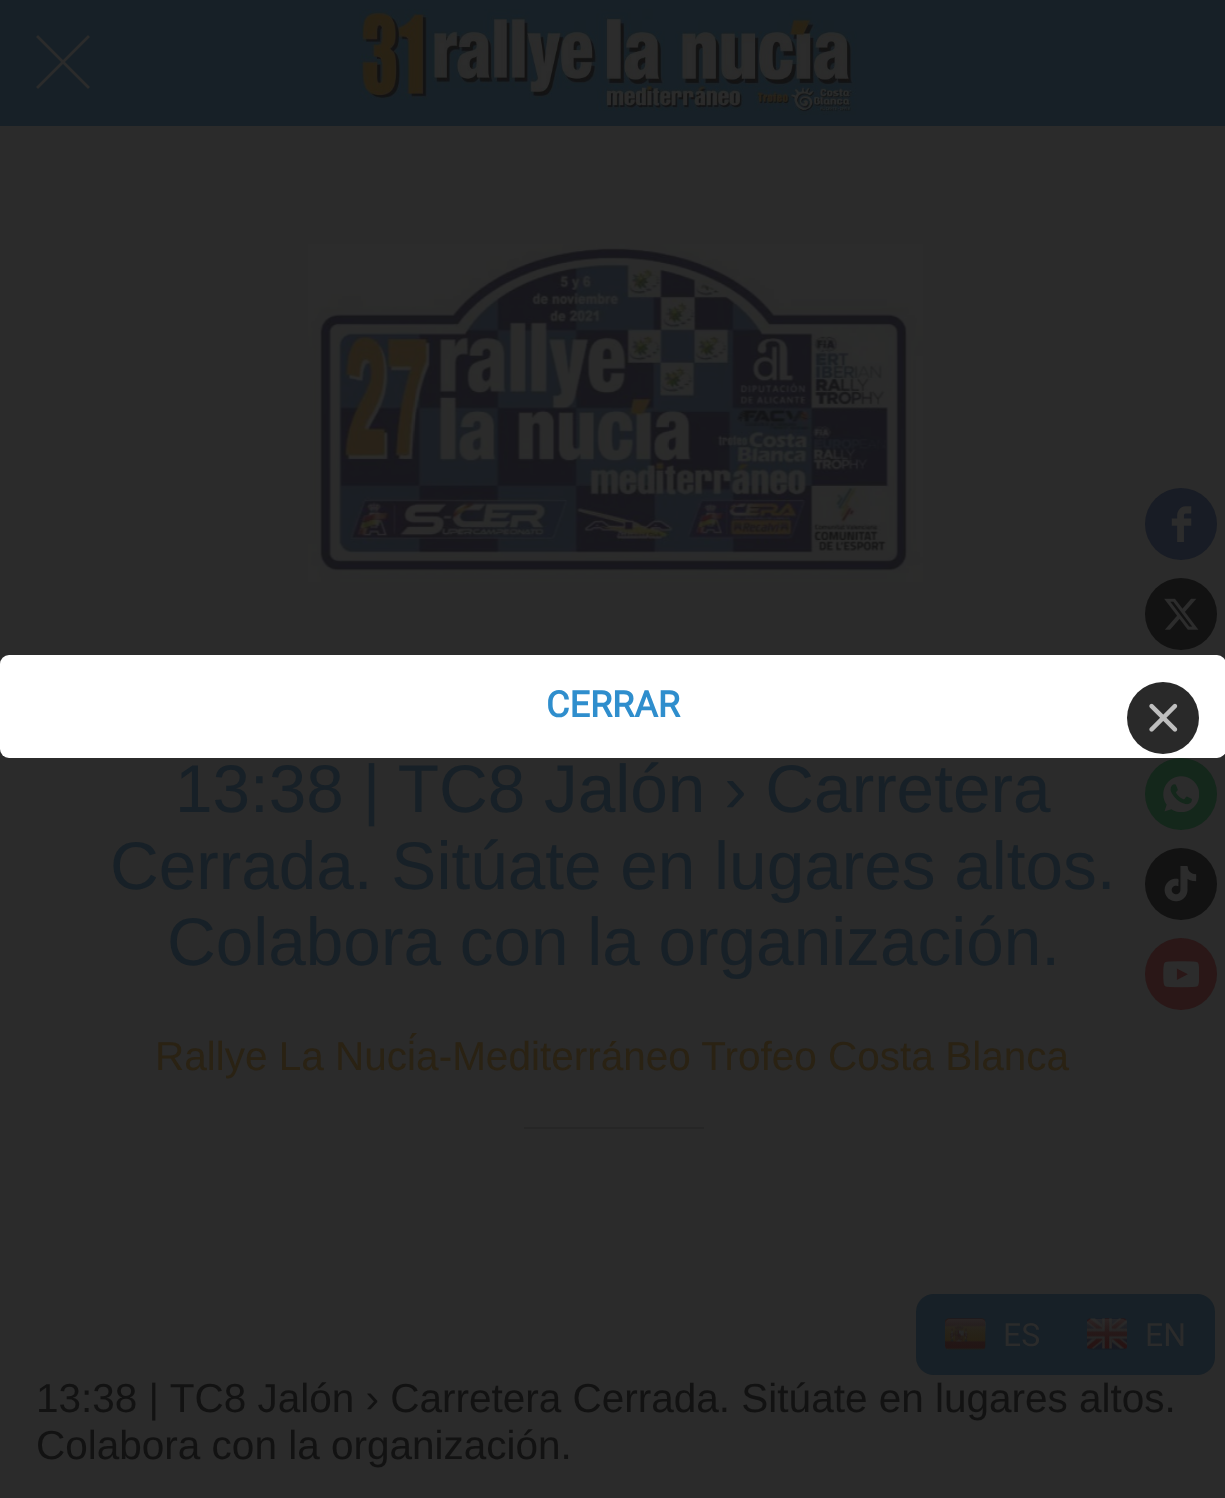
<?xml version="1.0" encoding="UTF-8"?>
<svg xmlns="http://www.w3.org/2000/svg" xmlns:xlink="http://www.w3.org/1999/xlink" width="1225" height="1498">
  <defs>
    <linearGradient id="g1" gradientUnits="userSpaceOnUse" x1="965" y1="1319" x2="965" y2="1350"><stop offset="0" stop-color="#2b2b2b" stop-opacity="0.7" /><stop offset="1" stop-color="#121212" stop-opacity="0.15" /></linearGradient>
    <linearGradient id="g2" gradientUnits="userSpaceOnUse" x1="1107" y1="1319" x2="1107" y2="1350"><stop offset="0" stop-color="#2b2b2b" stop-opacity="0.7" /><stop offset="1" stop-color="#121212" stop-opacity="0.15" /></linearGradient>
  </defs>
  <rect width="100%" height="100%" fill="#2b2b2b" />
  <rect y="655" width="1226" height="103" rx="9" fill="#ffffff" />
  <circle cx="1163" cy="718" r="36" fill="#292929" />
  <image x="1149" y="703" width="29" height="29" xlink:href="image1.png" />
  <circle cx="1181" cy="524" r="36" fill="#181c25" />
  <image x="1171" y="506" width="21" height="36" xlink:href="image2.png" />
  <circle cx="1181" cy="614" r="36" fill="#121212" />
  <image x="1164" y="598" width="35" height="32" xlink:href="image3.png" />
  <circle cx="1181" cy="794" r="36" fill="#14271b" />
  <image x="1163" y="776" width="36" height="36" xlink:href="image4.png" />
  <circle cx="1181" cy="884" r="36" fill="#121212" />
  <image x="1164" y="866" width="33" height="36" xlink:href="image5.png" />
  <circle cx="1181" cy="974" r="36" fill="#2a1717" />
  <image x="1163" y="961" width="36" height="27" xlink:href="image6.png" />
  <rect width="1225" height="126" fill="#172027" />
  <path d="M 90 37 l -2 -2 l -25 25 l -25 -25 l -2 2 l 25 25 l -25 25 l 2 2 l 25 -25 l 25 25 l 2 -2 l -25 -25 z" fill="#2b2b2b" />
  <image x="359" y="9" width="498" height="106" xlink:href="image7.png" />
  <image x="308" y="244" width="615" height="338" xlink:href="image8.png" />
  <rect x="524" y="1127" width="180" height="2" fill="#262626" />
  <rect x="916" y="1294" width="299" height="81" rx="18" fill="#172027" />
  <image x="945" y="1318" width="41" height="32" xlink:href="image9.png" />
  <rect x="945" y="1319" width="41" height="31" rx="5" fill="url(#g1)" />
  <image x="1087" y="1318" width="40" height="32" xlink:href="image10.png" />
  <rect x="1087" y="1319" width="40" height="31" rx="5" fill="url(#g2)" />
  <text x="546" y="717" style="font-family: Roboto; font-size: 36px; font-weight: bold; fill: #2f8ecd">CERRAR</text>
  <text x="175" y="812" style="font-family: Liberation Sans; font-size: 67.5px; fill: #172027">13:38 | TC8 Jalón › Carretera</text>
  <text x="110" y="889" style="font-family: Liberation Sans; font-size: 67.5px; fill: #172027">Cerrada. Sitúate en lugares altos.</text>
  <text x="167" y="965" style="font-family: Liberation Sans; font-size: 67.5px; fill: #172027">Colabora con la organización.</text>
  <text x="155" y="1070" style="font-family: Liberation Sans; font-size: 40.5px; fill: #2a2213">Rallye La Nucía-Mediterráneo Trofeo Costa Blanca</text>
  <text x="36" y="1412" style="font-family: Liberation Sans; font-size: 40.5px; fill: #121212">13:38 | TC8 Jalón › Carretera Cerrada. Sitúate en lugares altos.</text>
  <text x="36" y="1459" style="font-family: Liberation Sans; font-size: 40.5px; fill: #121212">Colabora con la organización.</text>
  <text x="1003" y="1346" style="font-family: Roboto; font-size: 32px; fill: #2b2b2b">ES</text>
  <text x="1145" y="1346" style="font-family: Roboto; font-size: 32px; fill: #2b2b2b">EN</text>
</svg>
